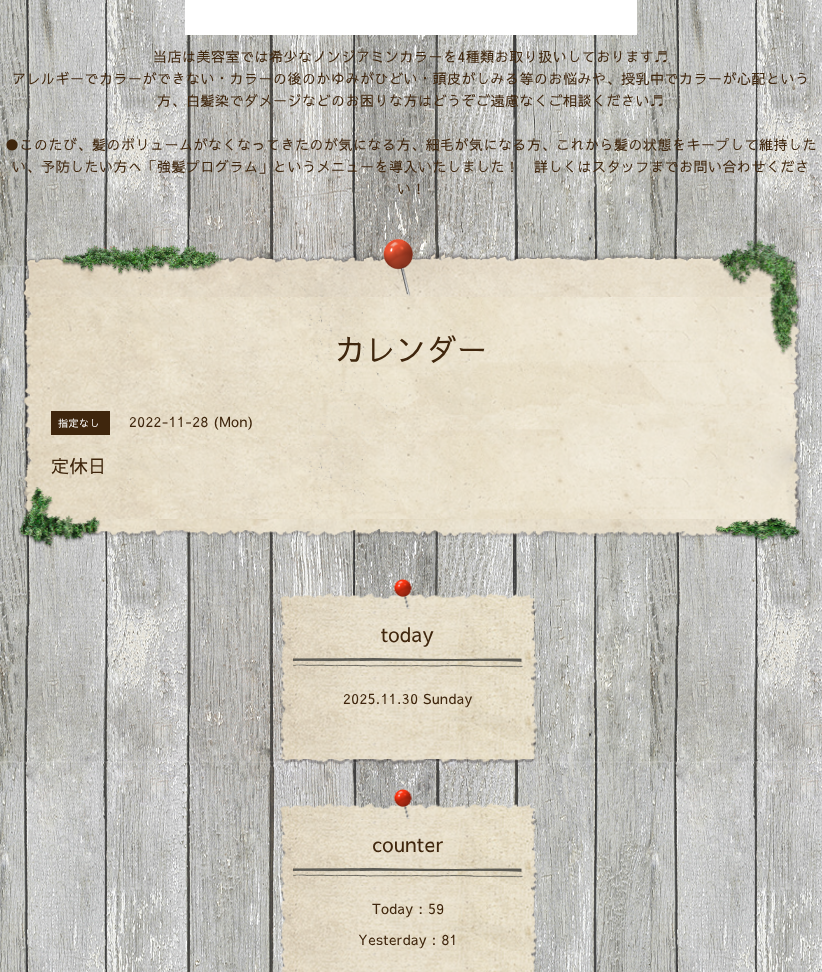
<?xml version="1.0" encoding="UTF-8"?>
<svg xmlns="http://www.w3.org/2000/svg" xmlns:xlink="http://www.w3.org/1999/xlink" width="822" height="972">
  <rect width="100%" height="100%" fill="#ffffff" />
  <image x="0" y="0" width="822" height="972" xlink:href="image1.png" />
  <rect x="185" width="452" height="35" fill="#ffffff" />
  <image x="21" y="239" width="780" height="300" xlink:href="image2.png" />
  <image x="61" y="244" width="162" height="32" xlink:href="image3.png" />
  <image x="21" y="297" width="780" height="222" xlink:href="image5.png" />
  <image x="718" y="239" width="82" height="116" xlink:href="image4.png" />
  <rect x="51" y="411" width="59" height="24" fill="#3f260d" />
  <image x="19" y="486" width="82" height="63" xlink:href="image6.png" />
  <image x="715" y="517" width="85" height="26" xlink:href="image7.png" />
  <image x="280" y="579" width="257" height="189" xlink:href="image8.png" />
  <image x="280" y="609" width="257" height="150" xlink:href="image9.png" />
  <image x="293" y="658" width="230" height="15" xlink:href="image10.png" />
  <image x="280" y="789" width="256" height="43" xlink:href="image11.png" />
  <image x="280" y="819" width="258" height="153" xlink:href="image12.png" />
  <image x="293" y="868" width="230" height="15" xlink:href="image13.png" />
  <text x="153" y="62" style="font-family: Sawarabi Gothic; font-size: 14px; letter-spacing: 0.5px; fill: #3f260d">当店は美容室では希少なノンジアミンカラーを4種類お取り扱いしております♬</text>
  <text x="12" y="84" style="font-family: Sawarabi Gothic; font-size: 14px; letter-spacing: 0.5px; fill: #3f260d">アレルギーでカラーができない・カラーの後のかゆみがひどい・頭皮がしみる等のお悩みや、授乳中でカラーが心配という</text>
  <text x="157" y="106" style="font-family: Sawarabi Gothic; font-size: 14px; letter-spacing: 0.5px; fill: #3f260d">方、白髪染でダメージなどのお困りな方はどうぞご遠慮なくご相談ください♬</text>
  <text x="5" y="150" style="font-family: Sawarabi Gothic; font-size: 14px; letter-spacing: 0.5px; fill: #3f260d">●このたび、髪のボリュームがなくなってきたのが気になる方、細毛が気になる方、これから髪の状態をキープして維持した</text>
  <text x="12" y="172" style="font-family: Sawarabi Gothic; font-size: 14px; letter-spacing: 0.5px; fill: #3f260d">い、予防したい方へ「強髪プログラム」というメニューを導入いたしました！　詳しくはスタッフまでお問い合わせくださ</text>
  <text x="397" y="194" style="font-family: Sawarabi Gothic; font-size: 14px; letter-spacing: 0.5px; fill: #3f260d">い！</text>
  <text x="335" y="361" style="font-family: Sawarabi Gothic; font-size: 30px; letter-spacing: 0.5px; fill: #3f260d">カレンダー</text>
  <text x="58" y="427" style="font-family: Sawarabi Gothic; font-size: 10px; letter-spacing: 0.5px; fill: #ffffff">指定なし</text>
  <text x="129" y="427" style="font-family: Sawarabi Gothic; font-size: 14px; letter-spacing: 0.5px; fill: #3f260d">2022-11-28 (Mon)</text>
  <text x="51" y="473" style="font-family: Sawarabi Gothic; font-size: 18px; letter-spacing: 0.5px; fill: #3f260d">定休日</text>
  <text x="381" y="642" style="font-family: Sawarabi Gothic; font-size: 20px; letter-spacing: 0.5px; fill: #3f260d">today</text>
  <text x="343" y="704" style="font-family: Sawarabi Gothic; font-size: 14px; letter-spacing: 0.5px; fill: #3f260d">2025.11.30 Sunday</text>
  <text x="372" y="852" style="font-family: Sawarabi Gothic; font-size: 20px; letter-spacing: 0.5px; fill: #3f260d">counter</text>
  <text x="372" y="914" style="font-family: Sawarabi Gothic; font-size: 14px; letter-spacing: 0.5px; fill: #3f260d">Today : 59</text>
  <text x="358" y="945" style="font-family: Sawarabi Gothic; font-size: 14px; letter-spacing: 0.5px; fill: #3f260d">Yesterday : 81</text>
</svg>
